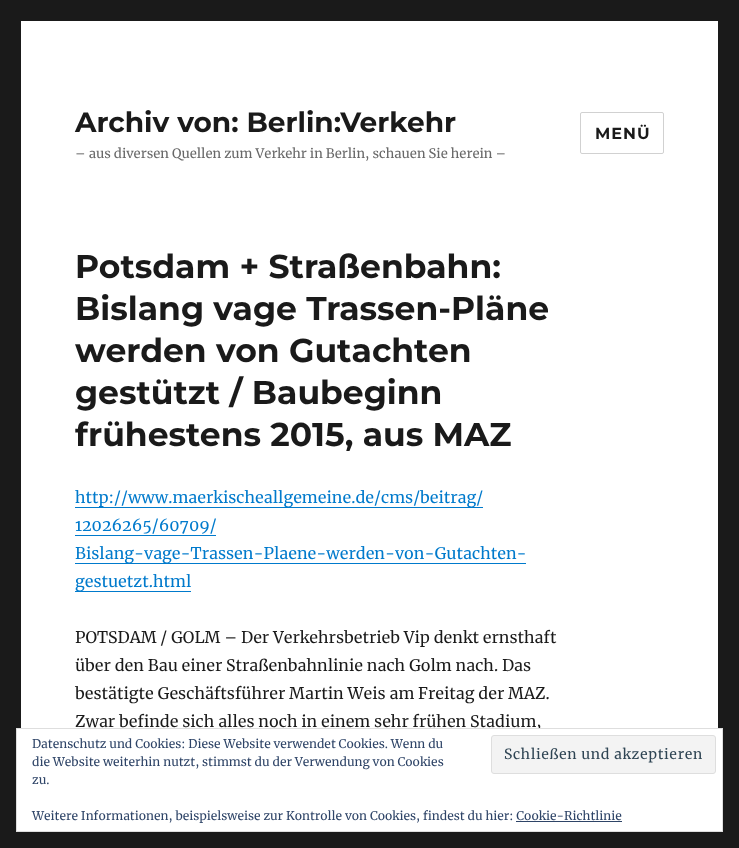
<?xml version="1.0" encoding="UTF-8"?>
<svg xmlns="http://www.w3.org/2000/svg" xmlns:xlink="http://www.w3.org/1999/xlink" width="739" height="848">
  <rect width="100%" height="100%" fill="#1a1a1a" />
  <rect x="21" y="21" width="697" height="707" fill="#ffffff" />
  <rect x="580.5" y="112.5" width="83" height="41" rx="1.5" fill="none" stroke="#d1d1d1" />
  <rect x="75" y="507" width="408" height="1" fill="#007acc" />
  <rect x="75" y="535" width="141" height="1" fill="#007acc" />
  <rect x="75" y="563" width="451" height="1" fill="#007acc" />
  <rect x="75" y="591" width="116" height="1" fill="#007acc" />
  <text x="75" y="132" style="font-family: Montserrat; font-size: 28px; font-weight: 100; fill: #1a1a1a">Archiv von: Berlin:Verkehr</text>
  <text x="75" y="158" style="font-family: Merriweather; font-size: 13px; fill: #686868">– aus diversen Quellen zum Verkehr in Berlin, schauen Sie herein –</text>
  <text x="595" y="139" style="font-family: Montserrat; font-size: 16px; font-weight: 100; letter-spacing: 1px; fill: #1a1a1a">MENÜ</text>
  <text x="75" y="278" style="font-family: Montserrat; font-size: 33px; font-weight: 100; fill: #1a1a1a">Potsdam + Straßenbahn:</text>
  <text x="75" y="320" style="font-family: Montserrat; font-size: 33px; font-weight: 100; fill: #1a1a1a">Bislang vage Trassen-Pläne</text>
  <text x="75" y="362" style="font-family: Montserrat; font-size: 33px; font-weight: 100; fill: #1a1a1a">werden von Gutachten</text>
  <text x="75" y="404" style="font-family: Montserrat; font-size: 33px; font-weight: 100; fill: #1a1a1a">gestützt / Baubeginn</text>
  <text x="75" y="446" style="font-family: Montserrat; font-size: 33px; font-weight: 100; fill: #1a1a1a">frühestens 2015, aus MAZ</text>
  <text x="75" y="503" style="font-family: Merriweather; font-size: 16px; fill: #007acc">http://www.maerkischeallgemeine.de/cms/beitrag/</text>
  <text x="75" y="531" style="font-family: Merriweather; font-size: 16px; fill: #007acc">12026265/60709/</text>
  <text x="75" y="559" style="font-family: Merriweather; font-size: 16px; fill: #007acc">Bislang-vage-Trassen-Plaene-werden-von-Gutachten-</text>
  <text x="75" y="587" style="font-family: Merriweather; font-size: 16px; fill: #007acc">gestuetzt.html</text>
  <text x="75" y="643" style="font-family: Merriweather; font-size: 16px; fill: #1a1a1a">POTSDAM / GOLM – Der Verkehrsbetrieb Vip denkt ernsthaft</text>
  <text x="75" y="671" style="font-family: Merriweather; font-size: 16px; fill: #1a1a1a">über den Bau einer Straßenbahnlinie nach Golm nach. Das</text>
  <text x="75" y="699" style="font-family: Merriweather; font-size: 16px; fill: #1a1a1a">bestätigte Geschäftsführer Martin Weis am Freitag der MAZ.</text>
  <text x="75" y="727" style="font-family: Merriweather; font-size: 16px; fill: #1a1a1a">Zwar befinde sich alles noch in einem sehr frühen Stadium,</text>
  <rect x="16.5" y="728.5" width="706" height="103" fill="#ffffff" stroke="#dedede" />
  <text x="32" y="748" style="font-family: Merriweather; font-size: 12px; fill: #2e4467">Datenschutz und Cookies: Diese Website verwendet Cookies. Wenn du</text>
  <text x="32" y="766" style="font-family: Merriweather; font-size: 12px; fill: #2e4467">die Website weiterhin nutzt, stimmst du der Verwendung von Cookies</text>
  <rect x="491.5" y="735.5" width="224" height="38" rx="2.5" fill="#f3f3f3" stroke="#dedede" />
  <text x="504" y="759" style="font-family: Merriweather; font-size: 14px; letter-spacing: 0.65px; fill: #2e4453">Schließen und akzeptieren</text>
  <text x="32" y="784" style="font-family: Merriweather; font-size: 12px; fill: #2e4467">zu.</text>
  <text x="32" y="820" style="font-family: Merriweather; font-size: 12px; fill: #2e4467">Weitere Informationen, beispielsweise zur Kontrolle von Cookies, findest du hier: Cookie-Richtlinie</text>
  <rect x="516" y="821" width="106" height="1" fill="#2e4467" />
</svg>
